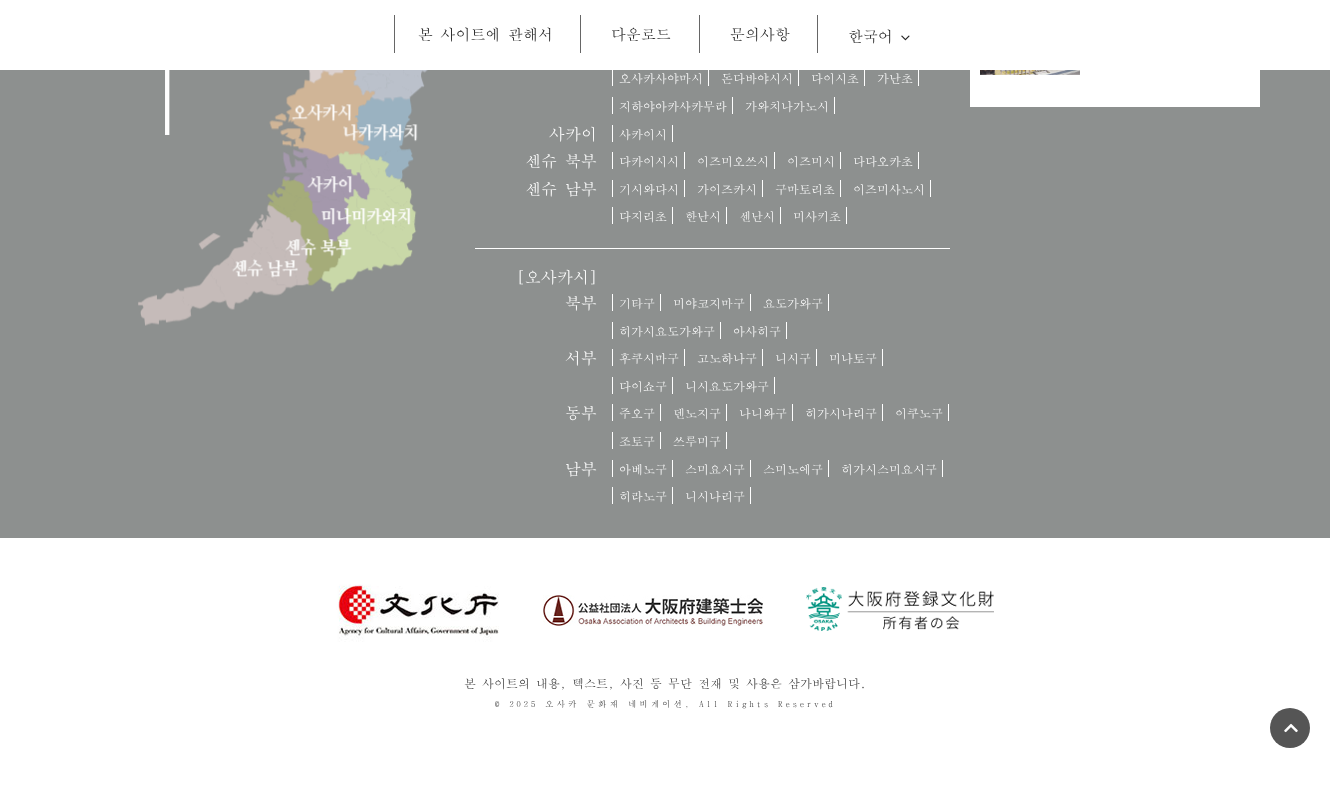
<?xml version="1.0" encoding="UTF-8"?>
<svg xmlns="http://www.w3.org/2000/svg" xmlns:xlink="http://www.w3.org/1999/xlink" width="1330" height="792">
  <rect width="100%" height="100%" fill="#ffffff" />
  <rect x="580" y="15" width="1" height="38" fill="#666666" />
  <rect x="394" y="15" width="1" height="38" fill="#666666" />
  <rect x="699" y="15" width="1" height="38" fill="#666666" />
  <rect x="817" y="15" width="1" height="38" fill="#666666" />
  <image x="901" y="35" width="9" height="6" xlink:href="image1.png" />
  <rect y="70" width="1330" height="468" fill="#8d908f" />
  <image x="165" y="70" width="5" height="65" xlink:href="image3.png" />
  <image x="138" y="70" width="290" height="256" xlink:href="image2.png" />
  <rect x="708" y="69" width="1" height="17" fill="#ffffff" />
  <rect x="612" y="69" width="1" height="17" fill="#ffffff" />
  <rect x="798" y="69" width="1" height="17" fill="#ffffff" />
  <rect x="864" y="69" width="1" height="17" fill="#ffffff" />
  <rect x="918" y="69" width="1" height="17" fill="#ffffff" />
  <rect x="732" y="97" width="1" height="17" fill="#ffffff" />
  <rect x="612" y="97" width="1" height="17" fill="#ffffff" />
  <rect x="834" y="97" width="1" height="17" fill="#ffffff" />
  <rect x="672" y="125" width="1" height="17" fill="#ffffff" />
  <rect x="612" y="125" width="1" height="17" fill="#ffffff" />
  <rect x="684" y="152" width="1" height="17" fill="#ffffff" />
  <rect x="612" y="152" width="1" height="17" fill="#ffffff" />
  <rect x="774" y="152" width="1" height="17" fill="#ffffff" />
  <rect x="840" y="152" width="1" height="17" fill="#ffffff" />
  <rect x="918" y="152" width="1" height="17" fill="#ffffff" />
  <rect x="684" y="180" width="1" height="17" fill="#ffffff" />
  <rect x="612" y="180" width="1" height="17" fill="#ffffff" />
  <rect x="762" y="180" width="1" height="17" fill="#ffffff" />
  <rect x="840" y="180" width="1" height="17" fill="#ffffff" />
  <rect x="930" y="180" width="1" height="17" fill="#ffffff" />
  <rect x="672" y="207" width="1" height="17" fill="#ffffff" />
  <rect x="612" y="207" width="1" height="17" fill="#ffffff" />
  <rect x="726" y="207" width="1" height="17" fill="#ffffff" />
  <rect x="780" y="207" width="1" height="17" fill="#ffffff" />
  <rect x="846" y="207" width="1" height="17" fill="#ffffff" />
  <rect x="475" y="248" width="475" height="1" fill="#ffffff" />
  <rect x="660" y="294" width="1" height="17" fill="#ffffff" />
  <rect x="612" y="294" width="1" height="17" fill="#ffffff" />
  <rect x="750" y="294" width="1" height="17" fill="#ffffff" />
  <rect x="828" y="294" width="1" height="17" fill="#ffffff" />
  <rect x="720" y="322" width="1" height="17" fill="#ffffff" />
  <rect x="612" y="322" width="1" height="17" fill="#ffffff" />
  <rect x="786" y="322" width="1" height="17" fill="#ffffff" />
  <rect x="684" y="349" width="1" height="17" fill="#ffffff" />
  <rect x="612" y="349" width="1" height="17" fill="#ffffff" />
  <rect x="762" y="349" width="1" height="17" fill="#ffffff" />
  <rect x="816" y="349" width="1" height="17" fill="#ffffff" />
  <rect x="882" y="349" width="1" height="17" fill="#ffffff" />
  <rect x="672" y="377" width="1" height="17" fill="#ffffff" />
  <rect x="612" y="377" width="1" height="17" fill="#ffffff" />
  <rect x="774" y="377" width="1" height="17" fill="#ffffff" />
  <rect x="660" y="404" width="1" height="17" fill="#ffffff" />
  <rect x="612" y="404" width="1" height="17" fill="#ffffff" />
  <rect x="726" y="404" width="1" height="17" fill="#ffffff" />
  <rect x="792" y="404" width="1" height="17" fill="#ffffff" />
  <rect x="882" y="404" width="1" height="17" fill="#ffffff" />
  <rect x="948" y="404" width="1" height="17" fill="#ffffff" />
  <rect x="660" y="432" width="1" height="17" fill="#ffffff" />
  <rect x="612" y="432" width="1" height="17" fill="#ffffff" />
  <rect x="726" y="432" width="1" height="17" fill="#ffffff" />
  <rect x="672" y="460" width="1" height="17" fill="#ffffff" />
  <rect x="612" y="460" width="1" height="17" fill="#ffffff" />
  <rect x="750" y="460" width="1" height="17" fill="#ffffff" />
  <rect x="828" y="460" width="1" height="17" fill="#ffffff" />
  <rect x="942" y="460" width="1" height="17" fill="#ffffff" />
  <rect x="672" y="487" width="1" height="17" fill="#ffffff" />
  <rect x="612" y="487" width="1" height="17" fill="#ffffff" />
  <rect x="750" y="487" width="1" height="17" fill="#ffffff" />
  <rect x="970" y="70" width="290" height="37" fill="#ffffff" />
  <image x="980" y="70" width="100" height="5" xlink:href="image4.png" />
  <image x="336" y="584" width="163" height="58" xlink:href="image5.png" />
  <image x="543" y="595" width="220" height="31" xlink:href="image6.png" />
  <image x="806" y="587" width="188" height="44" xlink:href="image7.png" />
  <circle cx="1290" cy="728" r="20" fill="#555555" />
  <image x="1284" y="723" width="14" height="10" xlink:href="image8.png" />
  <text x="418" y="40" style="font-family: BatangChe; font-size: 15px; fill: #222222">본 사이트에 관해서</text>
  <text x="611" y="40" style="font-family: BatangChe; font-size: 15px; fill: #222222">다운로드</text>
  <text x="730" y="40" style="font-family: BatangChe; font-size: 15px; fill: #222222">문의사항</text>
  <text x="848" y="42" style="font-family: BatangChe; font-size: 15px; fill: #222222">한국어</text>
  <text x="619" y="83" style="font-family: BatangChe; font-size: 12px; fill: #ffffff">오사카사야마시</text>
  <text x="721" y="83" style="font-family: BatangChe; font-size: 12px; fill: #ffffff">돈다바야시시</text>
  <text x="811" y="83" style="font-family: BatangChe; font-size: 12px; fill: #ffffff">다이시초</text>
  <text x="877" y="83" style="font-family: BatangChe; font-size: 12px; fill: #ffffff">가난초</text>
  <text x="619" y="111" style="font-family: BatangChe; font-size: 12px; fill: #ffffff">지하야아카사카무라</text>
  <text x="745" y="111" style="font-family: BatangChe; font-size: 12px; fill: #ffffff">가와치나가노시</text>
  <text x="549" y="140" style="font-family: BatangChe; font-size: 16px; fill: #ffffff">사카이</text>
  <text x="619" y="139" style="font-family: BatangChe; font-size: 12px; fill: #ffffff">사카이시</text>
  <text x="525" y="167" style="font-family: BatangChe; font-size: 16px; fill: #ffffff">센슈 북부</text>
  <text x="619" y="166" style="font-family: BatangChe; font-size: 12px; fill: #ffffff">다카이시시</text>
  <text x="697" y="166" style="font-family: BatangChe; font-size: 12px; fill: #ffffff">이즈미오쓰시</text>
  <text x="787" y="166" style="font-family: BatangChe; font-size: 12px; fill: #ffffff">이즈미시</text>
  <text x="853" y="166" style="font-family: BatangChe; font-size: 12px; fill: #ffffff">다다오카초</text>
  <text x="525" y="195" style="font-family: BatangChe; font-size: 16px; fill: #ffffff">센슈 남부</text>
  <text x="619" y="194" style="font-family: BatangChe; font-size: 12px; fill: #ffffff">기시와다시</text>
  <text x="697" y="194" style="font-family: BatangChe; font-size: 12px; fill: #ffffff">가이즈카시</text>
  <text x="775" y="194" style="font-family: BatangChe; font-size: 12px; fill: #ffffff">구마토리초</text>
  <text x="853" y="194" style="font-family: BatangChe; font-size: 12px; fill: #ffffff">이즈미사노시</text>
  <text x="619" y="221" style="font-family: BatangChe; font-size: 12px; fill: #ffffff">다지리초</text>
  <text x="685" y="221" style="font-family: BatangChe; font-size: 12px; fill: #ffffff">한난시</text>
  <text x="739" y="221" style="font-family: BatangChe; font-size: 12px; fill: #ffffff">센난시</text>
  <text x="793" y="221" style="font-family: BatangChe; font-size: 12px; fill: #ffffff">미사키초</text>
  <text x="517" y="283" style="font-family: BatangChe; font-size: 16px; fill: #ffffff">[오사카시]</text>
  <text x="565" y="309" style="font-family: BatangChe; font-size: 16px; fill: #ffffff">북부</text>
  <text x="619" y="308" style="font-family: BatangChe; font-size: 12px; fill: #ffffff">기타구</text>
  <text x="673" y="308" style="font-family: BatangChe; font-size: 12px; fill: #ffffff">미야코지마구</text>
  <text x="763" y="308" style="font-family: BatangChe; font-size: 12px; fill: #ffffff">요도가와구</text>
  <text x="619" y="336" style="font-family: BatangChe; font-size: 12px; fill: #ffffff">히가시요도가와구</text>
  <text x="733" y="336" style="font-family: BatangChe; font-size: 12px; fill: #ffffff">아사히구</text>
  <text x="565" y="364" style="font-family: BatangChe; font-size: 16px; fill: #ffffff">서부</text>
  <text x="619" y="363" style="font-family: BatangChe; font-size: 12px; fill: #ffffff">후쿠시마구</text>
  <text x="697" y="363" style="font-family: BatangChe; font-size: 12px; fill: #ffffff">고노하나구</text>
  <text x="775" y="363" style="font-family: BatangChe; font-size: 12px; fill: #ffffff">니시구</text>
  <text x="829" y="363" style="font-family: BatangChe; font-size: 12px; fill: #ffffff">미나토구</text>
  <text x="619" y="391" style="font-family: BatangChe; font-size: 12px; fill: #ffffff">다이쇼구</text>
  <text x="685" y="391" style="font-family: BatangChe; font-size: 12px; fill: #ffffff">니시요도가와구</text>
  <text x="565" y="419" style="font-family: BatangChe; font-size: 16px; fill: #ffffff">동부</text>
  <text x="619" y="418" style="font-family: BatangChe; font-size: 12px; fill: #ffffff">주오구</text>
  <text x="673" y="418" style="font-family: BatangChe; font-size: 12px; fill: #ffffff">덴노지구</text>
  <text x="739" y="418" style="font-family: BatangChe; font-size: 12px; fill: #ffffff">나니와구</text>
  <text x="805" y="418" style="font-family: BatangChe; font-size: 12px; fill: #ffffff">히가시나리구</text>
  <text x="895" y="418" style="font-family: BatangChe; font-size: 12px; fill: #ffffff">이쿠노구</text>
  <text x="619" y="446" style="font-family: BatangChe; font-size: 12px; fill: #ffffff">조토구</text>
  <text x="673" y="446" style="font-family: BatangChe; font-size: 12px; fill: #ffffff">쓰루미구</text>
  <text x="565" y="475" style="font-family: BatangChe; font-size: 16px; fill: #ffffff">남부</text>
  <text x="619" y="474" style="font-family: BatangChe; font-size: 12px; fill: #ffffff">아베노구</text>
  <text x="685" y="474" style="font-family: BatangChe; font-size: 12px; fill: #ffffff">스미요시구</text>
  <text x="763" y="474" style="font-family: BatangChe; font-size: 12px; fill: #ffffff">스미노에구</text>
  <text x="841" y="474" style="font-family: BatangChe; font-size: 12px; fill: #ffffff">히가시스미요시구</text>
  <text x="619" y="501" style="font-family: BatangChe; font-size: 12px; fill: #ffffff">히라노구</text>
  <text x="685" y="501" style="font-family: BatangChe; font-size: 12px; fill: #ffffff">니시나리구</text>
  <text x="464" y="688" style="font-family: BatangChe; font-size: 12px; fill: #333333">본 사이트의 내용, 텍스트, 사진 등 무단 전재 및 사용은 삼가바랍니다.</text>
  <text x="495" y="707" style="font-family: BatangChe; font-size: 8.4px; letter-spacing: 3px; fill: #333333">© 2025 오사카 문화재 네비게이션, All Rights Reserved</text>
</svg>
